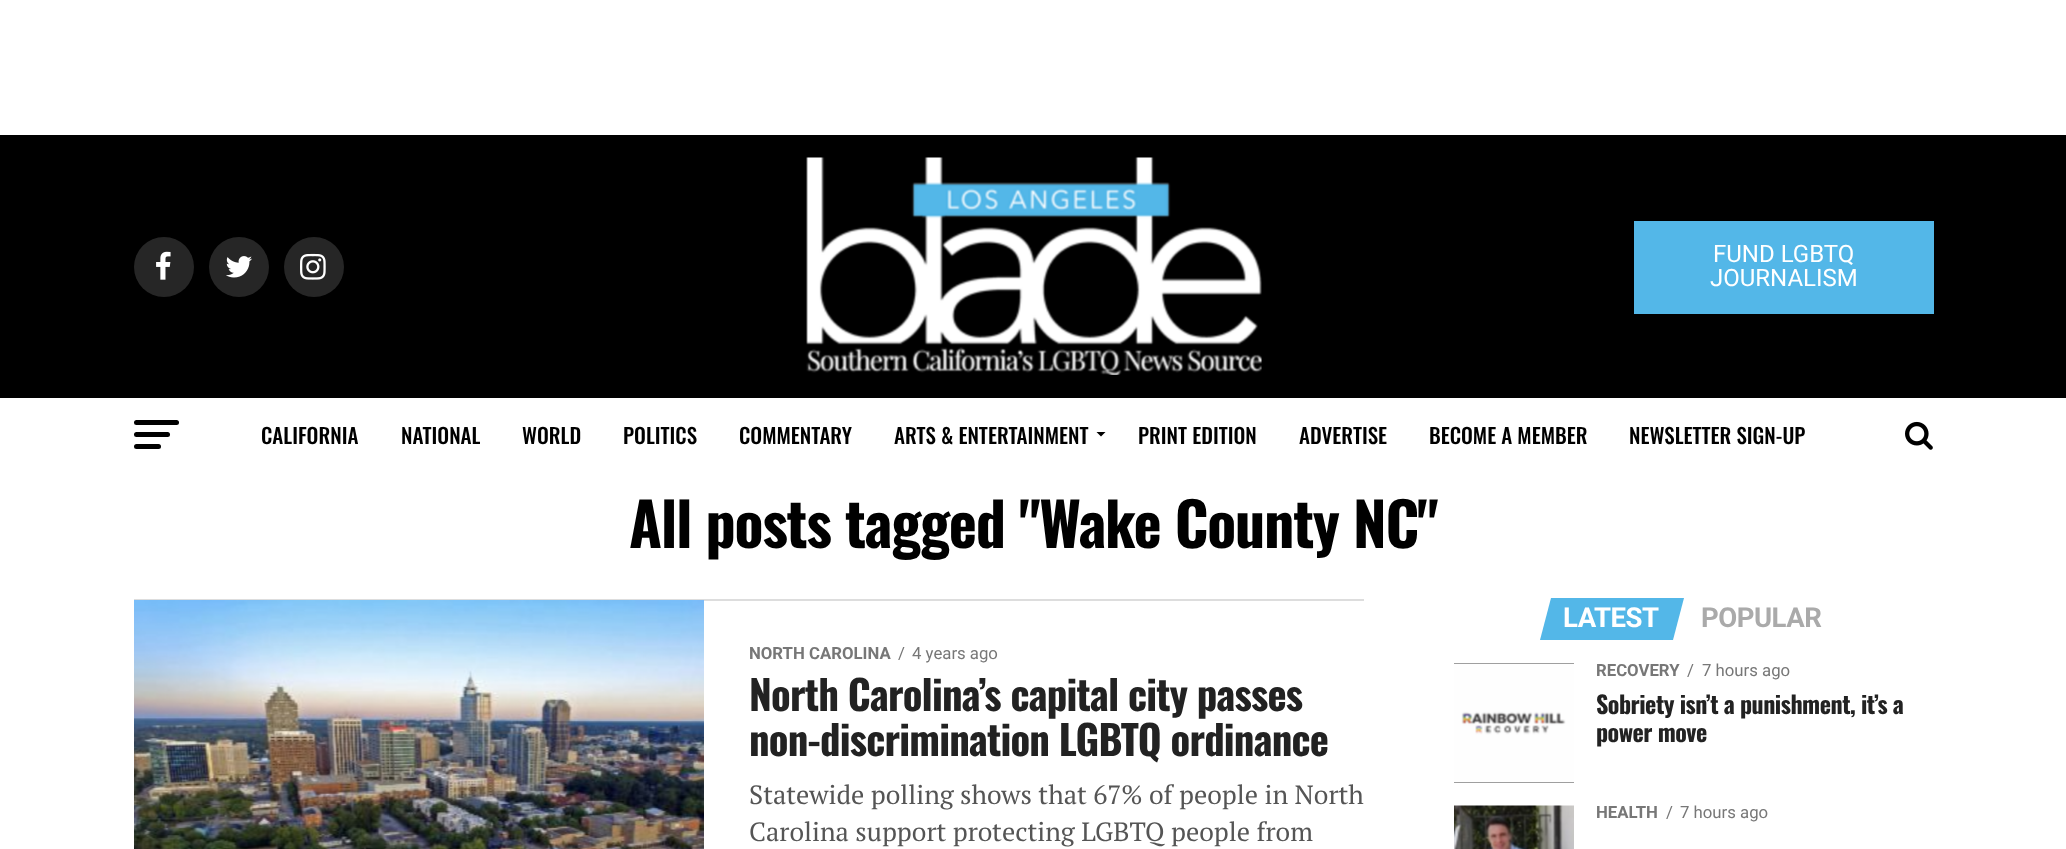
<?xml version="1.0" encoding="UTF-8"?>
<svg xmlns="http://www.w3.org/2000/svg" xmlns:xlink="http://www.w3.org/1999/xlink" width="2066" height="849">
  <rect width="100%" height="100%" fill="#ffffff" />
  <rect y="135" width="2066" height="263" fill="#000000" />
  <circle cx="164" cy="267" r="30" fill="#262626" />
  <image x="156" y="251" width="15" height="29" xlink:href="image1.png" />
  <circle cx="239" cy="267" r="30" fill="#262626" />
  <image x="226" y="256" width="26" height="22" xlink:href="image2.png" />
  <circle cx="314" cy="267" r="30" fill="#262626" />
  <image x="300" y="253" width="26" height="27" xlink:href="image3.png" />
  <image x="806" y="157" width="456" height="218" xlink:href="image4.png" />
  <rect x="1634" y="221" width="300" height="93" fill="#53b7e8" />
  <rect x="134" y="420" width="45" height="5" rx="2.5" fill="#000000" />
  <rect x="134" y="432" width="36" height="5" rx="2.5" fill="#000000" />
  <rect x="134" y="444" width="27" height="5" rx="2.5" fill="#000000" />
  <path d="M 1096.5 432 h 9 l -4.5 4.5 z" fill="#000000" />
  <image x="1905" y="421" width="28" height="29" xlink:href="image5.png" />
  <rect x="134" y="599" width="1230" height="2" fill="#dddddd" />
  <image x="134" y="600" width="570" height="249" xlink:href="image6.png" />
  <path d="M 1551 598 h 133 l -11 42 h -133 z" fill="#53b7e8" />
  <rect x="1454" y="663" width="120" height="120" fill="#000000" />
  <image x="1454" y="663" width="120" height="120" xlink:href="image7.png" />
  <image x="1454" y="805" width="120" height="44" xlink:href="image8.png" />
  <text x="1713" y="262" style="font-family: Roboto; font-size: 24px; fill: #ffffff">FUND LGBTQ</text>
  <text x="1710" y="286" style="font-family: Roboto; font-size: 24px; fill: #ffffff">JOURNALISM</text>
  <text x="261" y="444" style="font-family: Oswald; font-size: 21px; font-weight: 500; fill: #000000">CALIFORNIA</text>
  <text x="401" y="444" style="font-family: Oswald; font-size: 21px; font-weight: 500; fill: #000000">NATIONAL</text>
  <text x="522" y="444" style="font-family: Oswald; font-size: 21px; font-weight: 500; fill: #000000">WORLD</text>
  <text x="623" y="444" style="font-family: Oswald; font-size: 21px; font-weight: 500; fill: #000000">POLITICS</text>
  <text x="739" y="444" style="font-family: Oswald; font-size: 21px; font-weight: 500; fill: #000000">COMMENTARY</text>
  <text x="894" y="444" style="font-family: Oswald; font-size: 21px; font-weight: 500; fill: #000000">ARTS &amp; ENTERTAINMENT</text>
  <text x="1138" y="444" style="font-family: Oswald; font-size: 21px; font-weight: 500; fill: #000000">PRINT EDITION</text>
  <text x="1299" y="444" style="font-family: Oswald; font-size: 21px; font-weight: 500; fill: #000000">ADVERTISE</text>
  <text x="1429" y="444" style="font-family: Oswald; font-size: 21px; font-weight: 500; fill: #000000">BECOME A MEMBER</text>
  <text x="1629" y="444" style="font-family: Oswald; font-size: 21px; font-weight: 500; fill: #000000">NEWSLETTER SIGN-UP</text>
  <text x="629" y="548" style="font-family: Oswald; font-size: 60px; font-weight: bold; letter-spacing: -1.2px; fill: #000000">All posts tagged "Wake County NC"</text>
  <text x="749" y="659" style="font-family: Roboto; font-size: 16.75px; font-weight: bold; fill: #777777">NORTH CAROLINA</text>
  <text x="898" y="659" style="font-family: Roboto; font-size: 16.75px; fill: #777777">/</text>
  <text x="912" y="659" style="font-family: Roboto; font-size: 16.75px; fill: #777777">4 years ago</text>
  <text x="749" y="711" style="font-family: Oswald; font-size: 40.75px; font-weight: bold; letter-spacing: -0.8px; fill: #222222">North Carolina’s capital city passes</text>
  <text x="749" y="756" style="font-family: Oswald; font-size: 40.75px; font-weight: bold; letter-spacing: -0.8px; fill: #222222">non-discrimination LGBTQ ordinance</text>
  <text x="749" y="804" style="font-family: PT Serif; font-size: 26.4px; fill: #555555">Statewide polling shows that 67% of people in North</text>
  <text x="749" y="841" style="font-family: PT Serif; font-size: 26.4px; fill: #555555">Carolina support protecting LGBTQ people from</text>
  <text x="1563" y="627" style="font-family: Roboto; font-size: 27.5px; font-weight: bold; letter-spacing: -0.5px; fill: #ffffff">LATEST</text>
  <text x="1701" y="627" style="font-family: Roboto; font-size: 27.5px; font-weight: bold; letter-spacing: -0.5px; fill: #aaaaaa">POPULAR</text>
  <text x="1596" y="676" style="font-family: Roboto; font-size: 16.75px; font-weight: bold; fill: #777777">RECOVERY</text>
  <text x="1687" y="676" style="font-family: Roboto; font-size: 16.75px; fill: #777777">/</text>
  <text x="1702" y="676" style="font-family: Roboto; font-size: 16.75px; fill: #777777">7 hours ago</text>
  <text x="1596" y="714" style="font-family: Oswald; font-size: 24px; font-weight: bold; letter-spacing: -0.5px; fill: #222222">Sobriety isn’t a punishment, it’s a</text>
  <text x="1596" y="742" style="font-family: Oswald; font-size: 24px; font-weight: bold; letter-spacing: -0.5px; fill: #222222">power move</text>
  <text x="1596" y="818" style="font-family: Roboto; font-size: 16.75px; font-weight: bold; fill: #777777">HEALTH</text>
  <text x="1666" y="818" style="font-family: Roboto; font-size: 16.75px; fill: #777777">/</text>
  <text x="1680" y="818" style="font-family: Roboto; font-size: 16.75px; fill: #777777">7 hours ago</text>
</svg>
